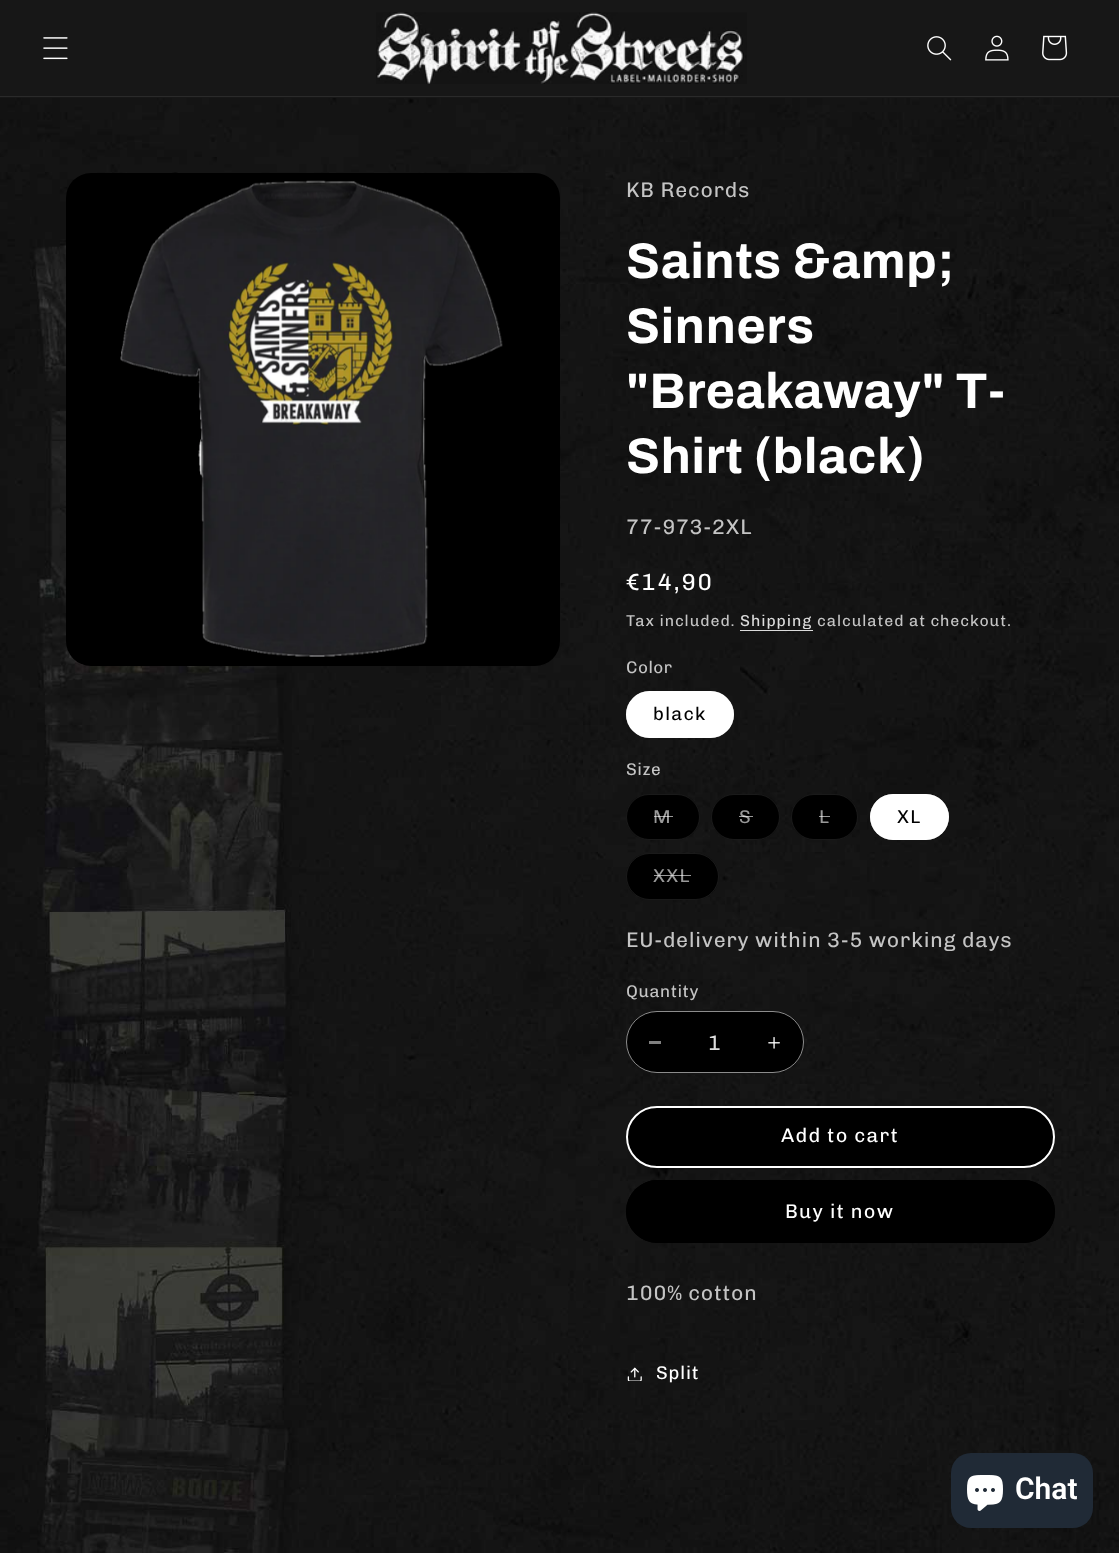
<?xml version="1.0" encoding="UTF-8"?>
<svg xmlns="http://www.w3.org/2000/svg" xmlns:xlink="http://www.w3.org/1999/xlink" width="1119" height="1553">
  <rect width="100%" height="100%" fill="#ffffff" />
  <image x="0" y="98" width="1119" height="1455" xlink:href="image1.png" />
  <rect width="1119" height="98" fill="#171717" />
  <rect y="96" width="1119" height="1" fill="#2a2a2a" />
  <image x="43" y="37" width="25" height="23" xlink:href="image2.png" />
  <image x="376" y="12" width="371" height="72" xlink:href="image3.png" />
  <image x="927" y="36" width="25" height="25" xlink:href="image4.png" />
  <image x="985" y="35" width="24" height="26" xlink:href="image5.png" />
  <image x="1042" y="35" width="26" height="26" xlink:href="image6.png" />
  <rect x="66" y="173" width="494" height="493" rx="25" fill="#000000" />
  <image x="120" y="180" width="383" height="477" xlink:href="image7.png" />
  <rect x="740" y="630" width="73" height="1" fill="#ffffff" fill-opacity="0.85" />
  <rect x="626" y="691" width="108" height="47" rx="23.5" fill="#ffffff" />
  <rect x="626.5" y="691.5" width="107" height="46" rx="23" fill="none" stroke="#ffffff" stroke-opacity="0.55" />
  <rect x="626" y="794" width="74" height="46" rx="23" fill="#000000" />
  <rect x="626.5" y="794.5" width="73" height="45" rx="22.5" fill="none" stroke="#ffffff" stroke-opacity="0.1" />
  <rect x="711" y="794" width="69" height="46" rx="23" fill="#000000" />
  <rect x="711.5" y="794.5" width="68" height="45" rx="22.5" fill="none" stroke="#ffffff" stroke-opacity="0.1" />
  <rect x="791" y="794" width="67" height="46" rx="23" fill="#000000" />
  <rect x="791.5" y="794.5" width="66" height="45" rx="22.5" fill="none" stroke="#ffffff" stroke-opacity="0.1" />
  <rect x="870" y="794" width="79" height="46" rx="23" fill="#ffffff" />
  <rect x="870.5" y="794.5" width="78" height="45" rx="22.5" fill="none" stroke="#ffffff" stroke-opacity="0.55" />
  <rect x="626" y="853" width="93" height="47" rx="23.5" fill="#000000" />
  <rect x="626.5" y="853.5" width="92" height="46" rx="23" fill="none" stroke="#ffffff" stroke-opacity="0.1" />
  <rect x="626" y="1011" width="178" height="62" rx="31" fill="#000000" />
  <rect x="649" y="1041" width="12" height="3" fill="#808080" />
  <image x="768" y="1037" width="12" height="12" xlink:href="image8.png" />
  <rect x="626.5" y="1011.5" width="177" height="61" rx="30.5" fill="none" stroke="#ffffff" stroke-opacity="0.55" />
  <rect x="626" y="1106" width="429" height="62" rx="31" fill="#000000" />
  <rect x="626.5" y="1106.5" width="428" height="61" rx="30.5" fill="none" stroke="#000000" />
  <rect x="627" y="1107" width="427" height="60" rx="30" fill="none" stroke="#ffffff" stroke-width="2" />
  <rect x="626" y="1180" width="429" height="63" rx="31.5" fill="#000000" />
  <rect x="626.5" y="1180.5" width="428" height="62" rx="31" fill="none" stroke="#000000" />
  <image x="627" y="1367" width="15" height="14" xlink:href="image9.png" />
  <rect x="951" y="1453" width="142" height="75" rx="20" fill="#202a36" />
  <image x="967" y="1475" width="36" height="36" xlink:href="image10.png" />
  <text x="626" y="197" style="font-family: Chivo; font-size: 21px; letter-spacing: 0.8px; fill: #c4c4c4">KB Records</text>
  <text x="626" y="278" style="font-family: Archivo; font-size: 50px; font-weight: bold; letter-spacing: 0.75px; fill: #ffffff">Saints &amp;amp;</text>
  <text x="626" y="343" style="font-family: Archivo; font-size: 50px; font-weight: bold; letter-spacing: 0.75px; fill: #ffffff">Sinners</text>
  <text x="626" y="408" style="font-family: Archivo; font-size: 50px; font-weight: bold; letter-spacing: 0.75px; fill: #ffffff">"Breakaway" T-</text>
  <text x="626" y="473" style="font-family: Archivo; font-size: 50px; font-weight: bold; letter-spacing: 0.75px; fill: #ffffff">Shirt (black)</text>
  <text x="626" y="534" style="font-family: Chivo; font-size: 21px; letter-spacing: 0.8px; fill: #c4c4c4">77-973-2XL</text>
  <text x="626" y="590" style="font-family: Chivo; font-size: 23.5px; letter-spacing: 1.75px; fill: #ffffff">€14,90</text>
  <text x="626" y="626" style="font-family: Chivo; font-size: 15.75px; letter-spacing: 0.9px; fill: #c4c4c4">Tax included.</text>
  <text x="740" y="626" style="font-family: Chivo; font-size: 15.75px; letter-spacing: 0.9px; fill: #dcdcdc">Shipping</text>
  <text x="817" y="626" style="font-family: Chivo; font-size: 15.75px; letter-spacing: 0.9px; fill: #c4c4c4">calculated at checkout.</text>
  <text x="626" y="673" style="font-family: Chivo; font-size: 17px; letter-spacing: 0.5px; fill: #c4c4c4">Color</text>
  <text x="653" y="720" style="font-family: Chivo; font-size: 18.5px; letter-spacing: 1.25px; fill: #000000">black</text>
  <text x="626" y="775" style="font-family: Chivo; font-size: 17px; letter-spacing: 0.5px; fill: #c4c4c4">Size</text>
  <text x="653" y="823" style="font-family: Chivo; font-size: 18.5px; letter-spacing: 1.25px; fill: #999999">M</text>
  <rect x="654" y="816" width="19" height="1" fill="#ffffff" fill-opacity="0.6" />
  <text x="739" y="823" style="font-family: Chivo; font-size: 18.5px; letter-spacing: 1.25px; fill: #999999">S</text>
  <rect x="739" y="816" width="14" height="1" fill="#ffffff" fill-opacity="0.6" />
  <text x="819" y="823" style="font-family: Chivo; font-size: 18.5px; letter-spacing: 1.25px; fill: #999999">L</text>
  <rect x="819" y="816" width="11" height="1" fill="#ffffff" fill-opacity="0.6" />
  <text x="897" y="823" style="font-family: Chivo; font-size: 18.5px; letter-spacing: 1.25px; fill: #000000">XL</text>
  <text x="653" y="882" style="font-family: Chivo; font-size: 18.5px; letter-spacing: 1.25px; fill: #999999">XXL</text>
  <rect x="654" y="875" width="37" height="1" fill="#ffffff" fill-opacity="0.6" />
  <text x="626" y="947" style="font-family: Chivo; font-size: 21px; letter-spacing: 0.8px; fill: #c4c4c4">EU-delivery within 3-5 working days</text>
  <text x="626" y="997" style="font-family: Chivo; font-size: 17px; letter-spacing: 0.5px; fill: #c4c4c4">Quantity</text>
  <text x="708" y="1050" style="font-family: Chivo; font-size: 21px; fill: #dcdcdc">1</text>
  <text x="781" y="1142" style="font-family: Chivo; font-size: 19.75px; letter-spacing: 1.25px; fill: #ffffff">Add to cart</text>
  <text x="785" y="1218" style="font-family: Chivo; font-size: 19.75px; letter-spacing: 1.25px; fill: #ffffff">Buy it now</text>
  <text x="626" y="1300" style="font-family: Chivo; font-size: 21px; letter-spacing: 0.8px; fill: #c4c4c4">100% cotton</text>
  <text x="656" y="1379" style="font-family: Chivo; font-size: 18.5px; letter-spacing: 0.8px; fill: #ffffff">Split</text>
  <text x="1015" y="1499" style="font-family: Roboto; font-size: 30px; font-weight: 600; fill: #ffffff">Chat</text>
</svg>
